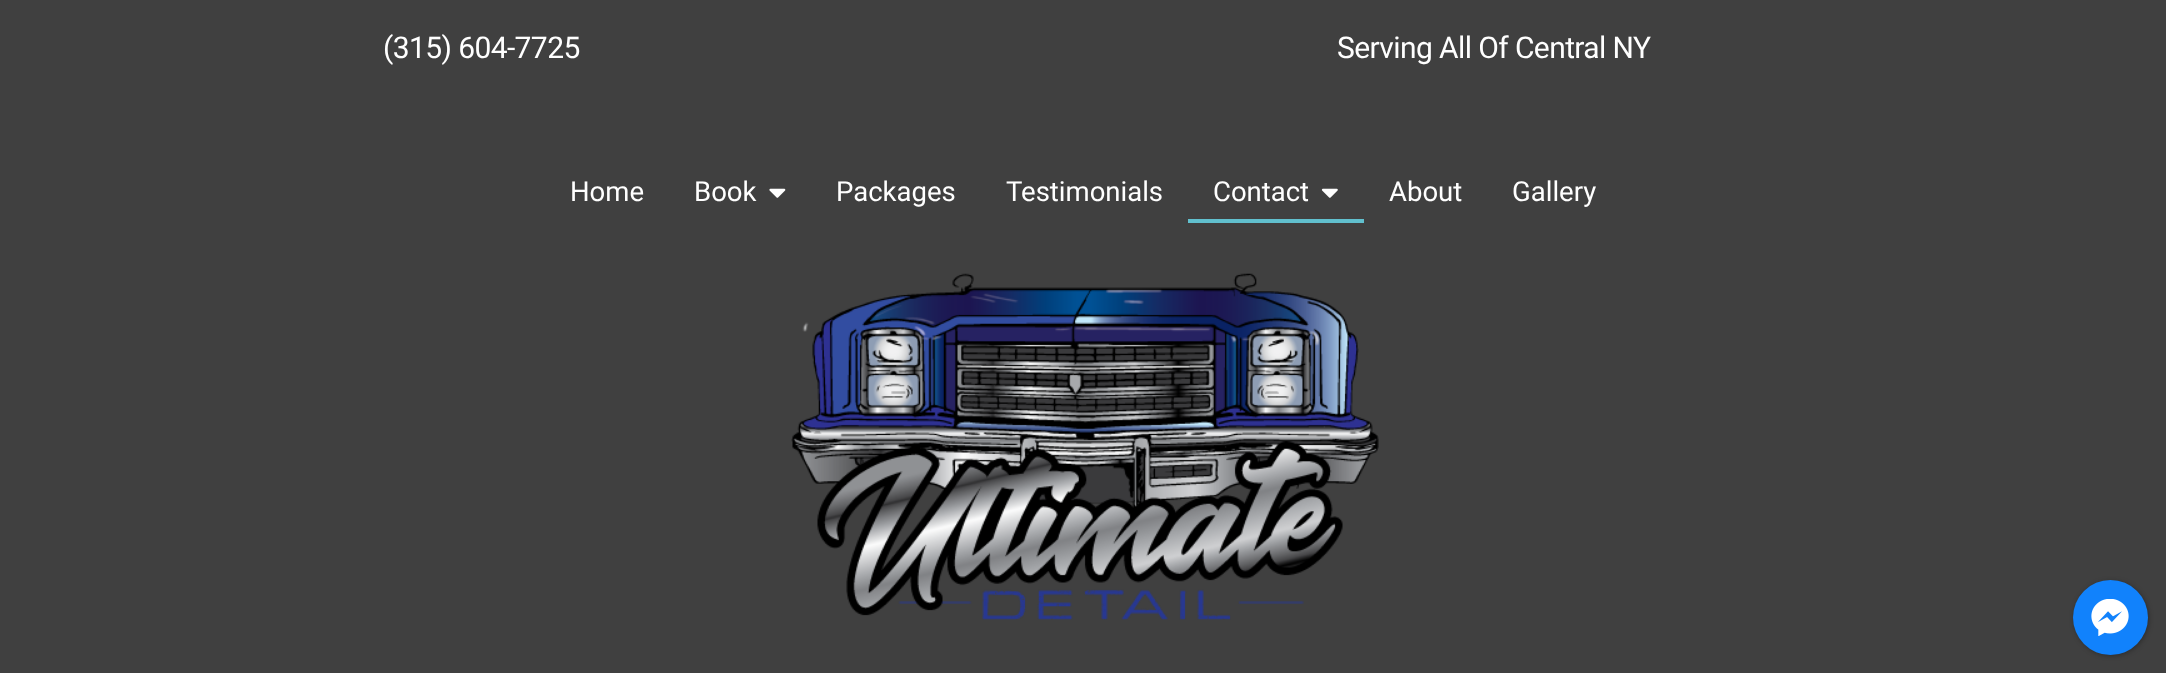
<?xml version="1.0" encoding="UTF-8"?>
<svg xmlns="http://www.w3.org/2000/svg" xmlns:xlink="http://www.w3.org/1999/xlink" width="2166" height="673">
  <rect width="100%" height="100%" fill="#404040" />
  <image x="769" y="188" width="17" height="10" xlink:href="image1.png" />
  <image x="1321" y="188" width="17" height="10" xlink:href="image2.png" />
  <rect x="1188" y="219" width="176" height="4" fill="#61c0ce" />
  <image x="791" y="273" width="588" height="347" xlink:href="image3.png" />
  <rect x="2074" y="581" width="75" height="75" rx="37.5" fill="#000000" fill-opacity="0.3" filter="blur(2.5px)" />
  <circle cx="2110.5" cy="617.5" r="37.5" fill="#1182fc" />
  <image x="2091" y="599" width="38" height="37" xlink:href="image4.png" />
  <text x="383" y="58" style="font-family: Roboto; font-size: 30px; letter-spacing: -0.6px; fill: #ffffff">(315) 604-7725</text>
  <text x="1337" y="58" style="font-family: Roboto; font-size: 30px; letter-spacing: -0.6px; fill: #ffffff">Serving All Of Central NY</text>
  <text x="570" y="201" style="font-family: Roboto; font-size: 27.5px; fill: #ffffff">Home</text>
  <text x="694" y="201" style="font-family: Roboto; font-size: 27.5px; fill: #ffffff">Book</text>
  <text x="836" y="201" style="font-family: Roboto; font-size: 27.5px; fill: #ffffff">Packages</text>
  <text x="1006" y="201" style="font-family: Roboto; font-size: 27.5px; fill: #ffffff">Testimonials</text>
  <text x="1213" y="201" style="font-family: Roboto; font-size: 27.5px; fill: #ffffff">Contact</text>
  <text x="1389" y="201" style="font-family: Roboto; font-size: 27.5px; fill: #ffffff">About</text>
  <text x="1512" y="201" style="font-family: Roboto; font-size: 27.5px; fill: #ffffff">Gallery</text>
</svg>
